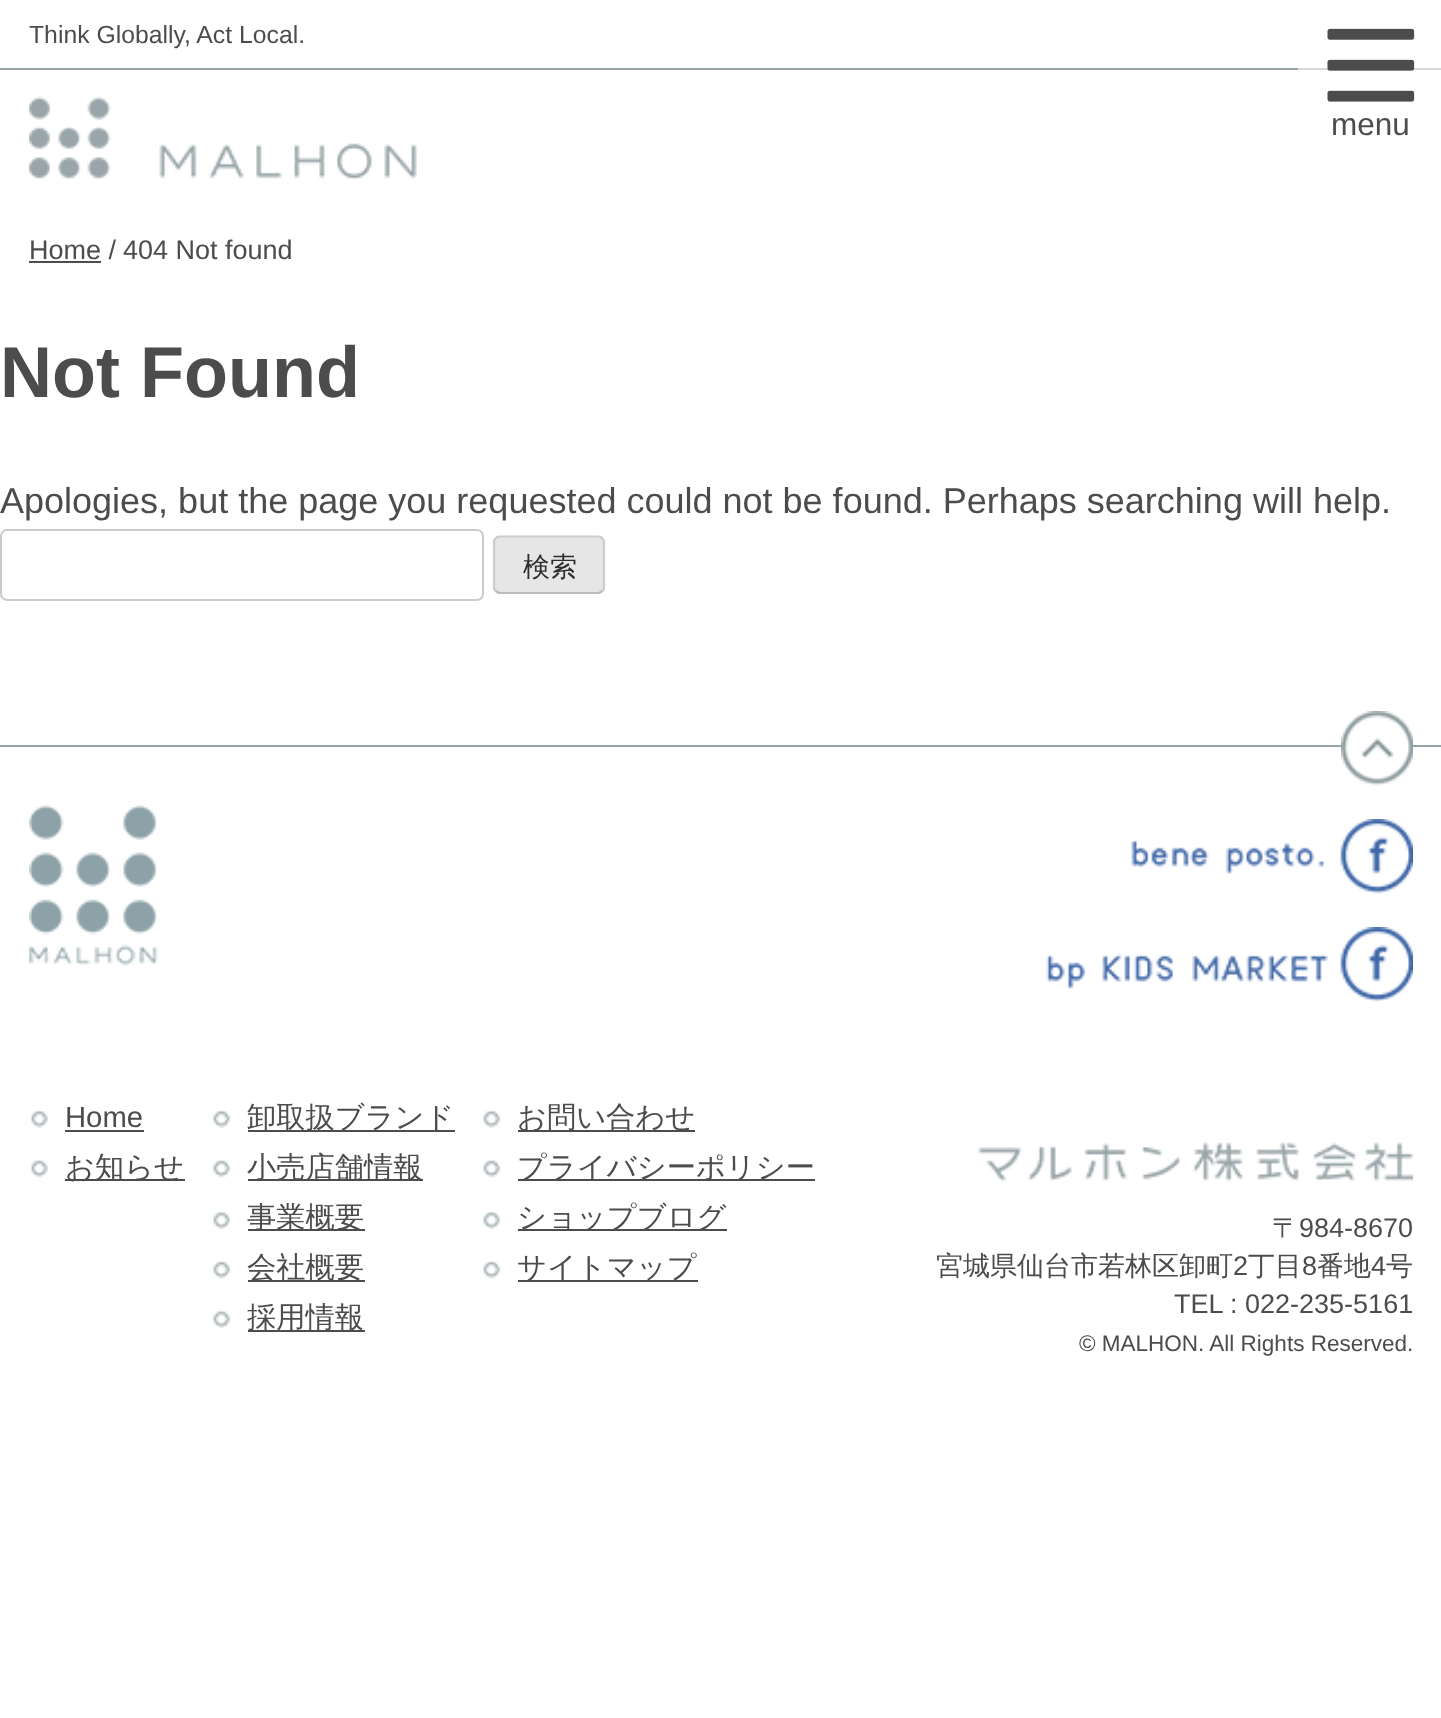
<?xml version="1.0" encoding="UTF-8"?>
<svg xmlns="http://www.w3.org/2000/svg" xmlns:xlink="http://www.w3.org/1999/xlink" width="1441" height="1718">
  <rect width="100%" height="100%" fill="#ffffff" />
  <rect y="68" width="1298" height="2" fill="#97a3a6" />
  <rect x="1298" y="68" width="143" height="2" fill="#d5dadb" />
  <image x="29" y="96" width="388" height="84" xlink:href="image1.png" />
  <image x="1327" y="28" width="88" height="74" xlink:href="image2.png" />
  <rect x="29" y="261" width="72" height="2" fill="#4c4c4c" />
  <rect x="1" y="530" width="482" height="70" rx="6" fill="none" stroke="#cccccc" stroke-width="2" />
  <rect x="493" y="536" width="112" height="58" rx="7" fill="#e6e6e6" />
  <path d="M 602.5 591 l -3.5 2 h -100 l -3.5 -2" fill="none" stroke="#bbbbbb" stroke-width="2.2" />
  <path d="M 495.5 591 c -1 -1 -1.5 -2.5 -1.5 -4 v -45 c 0 -1 0.5 -2.5 1.5 -3.5 c 1 -1.5 2.5 -2 4 -2 h 99 c 1.5 0 3 0.5 4 2 c 1 1 1.5 2.5 1.5 3.5 v 45 c 0 1.5 -0.5 3 -1.5 4" fill="none" stroke="#cccccc" stroke-width="2.2" />
  <rect y="745" width="1441" height="2" fill="#97a3a6" />
  <image x="29" y="805" width="129" height="161" xlink:href="image3.png" />
  <image x="1341" y="711" width="72" height="75" xlink:href="image4.png" />
  <image x="1131" y="819" width="282" height="75" xlink:href="image5.png" />
  <image x="1046" y="927" width="367" height="75" xlink:href="image6.png" />
  <image x="31" y="1109" width="17" height="19" xlink:href="image7.png" />
  <rect x="65" y="1130" width="79" height="2" fill="#4c4c4c" />
  <image x="31" y="1159" width="17" height="19" xlink:href="image8.png" />
  <rect x="65" y="1179" width="120" height="2" fill="#4c4c4c" />
  <image x="213" y="1109" width="18" height="19" xlink:href="image9.png" />
  <rect x="248" y="1130" width="207" height="2" fill="#4c4c4c" />
  <image x="213" y="1159" width="18" height="19" xlink:href="image10.png" />
  <rect x="248" y="1179" width="175" height="2" fill="#4c4c4c" />
  <image x="213" y="1210" width="18" height="19" xlink:href="image11.png" />
  <rect x="248" y="1229" width="117" height="2" fill="#4c4c4c" />
  <image x="213" y="1260" width="18" height="19" xlink:href="image12.png" />
  <rect x="248" y="1280" width="117" height="2" fill="#4c4c4c" />
  <image x="213" y="1309" width="18" height="19" xlink:href="image11.png" />
  <rect x="248" y="1330" width="117" height="2" fill="#4c4c4c" />
  <image x="483" y="1109" width="18" height="19" xlink:href="image9.png" />
  <rect x="518" y="1130" width="177" height="2" fill="#4c4c4c" />
  <image x="483" y="1159" width="18" height="19" xlink:href="image10.png" />
  <rect x="518" y="1179" width="297" height="2" fill="#4c4c4c" />
  <image x="483" y="1210" width="18" height="19" xlink:href="image11.png" />
  <rect x="518" y="1229" width="209" height="2" fill="#4c4c4c" />
  <image x="483" y="1260" width="18" height="19" xlink:href="image12.png" />
  <rect x="518" y="1280" width="180" height="2" fill="#4c4c4c" />
  <image x="978" y="1142" width="435" height="40" xlink:href="image13.png" />
  <text x="29" y="43" style="font-family: Liberation Sans; font-size: 24.75px; fill: #4c4c4c">Think Globally, Act Local.</text>
  <text x="1331" y="135" style="font-family: Liberation Sans; font-size: 31.5px; fill: #4c4c4c">menu</text>
  <text x="29" y="259" style="font-family: Liberation Sans; font-size: 27px; fill: #4c4c4c">Home /</text>
  <text x="123" y="259" style="font-family: Liberation Sans; font-size: 27px; fill: #4c4c4c">404 Not found</text>
  <text x="0" y="397" style="font-family: Liberation Sans; font-size: 72px; font-weight: bold; fill: #4c4c4c">Not Found</text>
  <text x="0" y="513" style="font-family: Liberation Sans; font-size: 36px; fill: #4c4c4c">Apologies, but the page you requested could not be found. Perhaps searching will help.</text>
  <text x="523" y="576" style="font-family: WenQuanYi Zen Hei; font-size: 27px; font-weight: 500; fill: #2e2e2e">検索</text>
  <text x="65" y="1127" style="font-family: Liberation Sans; font-size: 29.25px; fill: #4c4c4c">Home</text>
  <text x="65" y="1177" style="font-family: WenQuanYi Zen Hei; font-size: 29.25px; font-weight: 500; fill: #4c4c4c">お知らせ</text>
  <text x="247" y="1127" style="font-family: WenQuanYi Zen Hei; font-size: 29.25px; font-weight: 500; fill: #4c4c4c">卸取扱ブランド</text>
  <text x="247" y="1177" style="font-family: WenQuanYi Zen Hei; font-size: 29.25px; font-weight: 500; fill: #4c4c4c">小売店舗情報</text>
  <text x="247" y="1227" style="font-family: WenQuanYi Zen Hei; font-size: 29.25px; font-weight: 500; fill: #4c4c4c">事業概要</text>
  <text x="247" y="1277" style="font-family: WenQuanYi Zen Hei; font-size: 29.25px; font-weight: 500; fill: #4c4c4c">会社概要</text>
  <text x="247" y="1327" style="font-family: WenQuanYi Zen Hei; font-size: 29.25px; font-weight: 500; fill: #4c4c4c">採用情報</text>
  <text x="517" y="1127" style="font-family: WenQuanYi Zen Hei; font-size: 29.25px; font-weight: 500; fill: #4c4c4c">お問い合わせ</text>
  <text x="517" y="1177" style="font-family: WenQuanYi Zen Hei; font-size: 29.25px; font-weight: 500; fill: #4c4c4c">プライバシーポリシー</text>
  <text x="517" y="1227" style="font-family: WenQuanYi Zen Hei; font-size: 29.25px; font-weight: 500; fill: #4c4c4c">ショップブログ</text>
  <text x="517" y="1277" style="font-family: WenQuanYi Zen Hei; font-size: 29.25px; font-weight: 500; fill: #4c4c4c">サイトマップ</text>
  <text x="1272" y="1237" style="font-family: WenQuanYi Zen Hei; font-size: 27px; font-weight: 500; fill: #4c4c4c">〒</text>
  <text x="1299" y="1237" style="font-family: Liberation Sans; font-size: 27px; fill: #4c4c4c">984-8670</text>
  <text x="936" y="1275" style="font-family: WenQuanYi Zen Hei; font-size: 27px; font-weight: 500; fill: #4c4c4c">宮城県仙台市若林区卸町</text>
  <text x="1233" y="1275" style="font-family: Liberation Sans; font-size: 27px; fill: #4c4c4c">2</text>
  <text x="1248" y="1275" style="font-family: WenQuanYi Zen Hei; font-size: 27px; font-weight: 500; fill: #4c4c4c">丁目</text>
  <text x="1302" y="1275" style="font-family: Liberation Sans; font-size: 27px; fill: #4c4c4c">8</text>
  <text x="1317" y="1275" style="font-family: WenQuanYi Zen Hei; font-size: 27px; font-weight: 500; fill: #4c4c4c">番地</text>
  <text x="1371" y="1275" style="font-family: Liberation Sans; font-size: 27px; fill: #4c4c4c">4</text>
  <text x="1386" y="1275" style="font-family: WenQuanYi Zen Hei; font-size: 27px; font-weight: 500; fill: #4c4c4c">号</text>
  <text x="1174" y="1313" style="font-family: Liberation Sans; font-size: 27px; fill: #4c4c4c">TEL : 022-235-5161</text>
  <text x="1079" y="1351" style="font-family: Liberation Sans; font-size: 22.5px; fill: #4c4c4c">© MALHON. All Rights Reserved.</text>
</svg>
